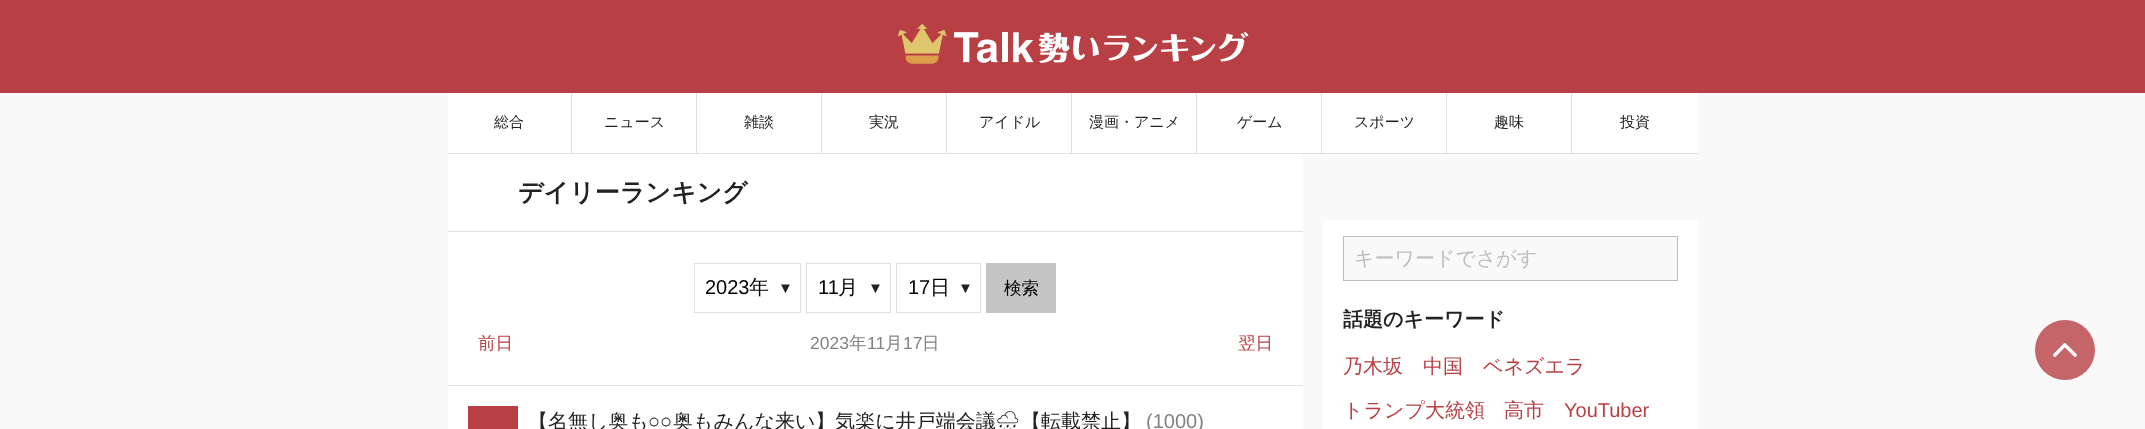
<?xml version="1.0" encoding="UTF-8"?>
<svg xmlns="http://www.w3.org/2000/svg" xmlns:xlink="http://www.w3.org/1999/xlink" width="2145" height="429">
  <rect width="100%" height="100%" fill="#f9f9f9" />
  <rect width="2145" height="93" fill="#b84045" />
  <image x="898" y="24" width="351" height="40" xlink:href="image1.png" />
  <rect x="448" y="93" width="1250" height="60" fill="#ffffff" />
  <rect x="448" y="153" width="1250" height="1" fill="#e0e0e0" />
  <rect x="571" y="93" width="1" height="60" fill="#e0e0e0" />
  <rect x="696" y="93" width="1" height="60" fill="#e0e0e0" />
  <rect x="821" y="93" width="1" height="60" fill="#e0e0e0" />
  <rect x="946" y="93" width="1" height="60" fill="#e0e0e0" />
  <rect x="1071" y="93" width="1" height="60" fill="#e0e0e0" />
  <rect x="1196" y="93" width="1" height="60" fill="#e0e0e0" />
  <rect x="1321" y="93" width="1" height="60" fill="#e0e0e0" />
  <rect x="1446" y="93" width="1" height="60" fill="#e0e0e0" />
  <rect x="1571" y="93" width="1" height="60" fill="#e0e0e0" />
  <rect x="448" y="154" width="855" height="275" fill="#ffffff" />
  <rect x="448" y="231" width="855" height="1" fill="#e0e0e0" />
  <rect x="694.5" y="263.5" width="106" height="49" fill="none" stroke="#e0e0e0" />
  <rect x="806.5" y="263.5" width="84" height="49" fill="none" stroke="#e0e0e0" />
  <rect x="896.5" y="263.5" width="84" height="49" fill="none" stroke="#e0e0e0" />
  <rect x="986" y="263" width="70" height="50" fill="#c4c4c4" />
  <rect x="448" y="385" width="855" height="1" fill="#e0e0e0" />
  <rect x="468" y="406" width="50" height="23" fill="#b84045" />
  <rect x="1323" y="220" width="375" height="209" fill="#ffffff" />
  <rect x="1343.5" y="236.5" width="334" height="44" fill="#f9f9f9" stroke="#bdbdbd" />
  <circle cx="2065" cy="350" r="30" fill="#c56569" />
  <image x="2053" y="343" width="24" height="14" xlink:href="image2.png" />
  <text x="494" y="127" style="font-family: WenQuanYi Zen Hei; font-size: 15px; font-weight: 500; fill: #222222">総合</text>
  <text x="604" y="127" style="font-family: WenQuanYi Zen Hei; font-size: 15px; font-weight: 500; fill: #222222">ニュース</text>
  <text x="744" y="127" style="font-family: WenQuanYi Zen Hei; font-size: 15px; font-weight: 500; fill: #222222">雑談</text>
  <text x="869" y="127" style="font-family: WenQuanYi Zen Hei; font-size: 15px; font-weight: 500; fill: #222222">実況</text>
  <text x="979" y="127" style="font-family: WenQuanYi Zen Hei; font-size: 15px; font-weight: 500; fill: #222222">アイドル</text>
  <text x="1089" y="127" style="font-family: WenQuanYi Zen Hei; font-size: 15px; font-weight: 500; fill: #222222">漫画・アニメ</text>
  <text x="1237" y="127" style="font-family: WenQuanYi Zen Hei; font-size: 15px; font-weight: 500; fill: #222222">ゲーム</text>
  <text x="1354" y="127" style="font-family: WenQuanYi Zen Hei; font-size: 15px; font-weight: 500; fill: #222222">スポーツ</text>
  <text x="1494" y="127" style="font-family: WenQuanYi Zen Hei; font-size: 15px; font-weight: 500; fill: #222222">趣味</text>
  <text x="1620" y="127" style="font-family: WenQuanYi Zen Hei; font-size: 15px; font-weight: 500; fill: #222222">投資</text>
  <text x="518" y="201" style="font-family: WenQuanYi Zen Hei; font-size: 25px; font-weight: bold; fill: #222222">デイリーランキング</text>
  <text x="705" y="294" style="font-family: Liberation Sans; font-size: 20px; fill: #000000">2023</text>
  <text x="749" y="294" style="font-family: WenQuanYi Zen Hei; font-size: 20px; font-weight: 500; fill: #000000">年</text>
  <text x="778" y="293" style="font-family: Liberation Sans; font-size: 15px; fill: #222222">▼</text>
  <text x="818" y="294" style="font-family: Liberation Sans; font-size: 20px; fill: #000000">11</text>
  <text x="838" y="294" style="font-family: WenQuanYi Zen Hei; font-size: 20px; font-weight: 500; fill: #000000">月</text>
  <text x="868" y="293" style="font-family: Liberation Sans; font-size: 15px; fill: #222222">▼</text>
  <text x="908" y="294" style="font-family: Liberation Sans; font-size: 20px; fill: #000000">17</text>
  <text x="930" y="294" style="font-family: WenQuanYi Zen Hei; font-size: 20px; font-weight: 500; fill: #000000">日</text>
  <text x="958" y="293" style="font-family: Liberation Sans; font-size: 15px; fill: #222222">▼</text>
  <text x="1004" y="294" style="font-family: WenQuanYi Zen Hei; font-size: 17.5px; font-weight: 500; fill: #000000">検索</text>
  <text x="478" y="349" style="font-family: WenQuanYi Zen Hei; font-size: 17.5px; font-weight: 500; fill: #b84045">前日</text>
  <text x="810" y="349" style="font-family: Liberation Sans; font-size: 17.5px; fill: #828282">2023</text>
  <text x="849" y="349" style="font-family: WenQuanYi Zen Hei; font-size: 17.5px; font-weight: 500; fill: #828282">年</text>
  <text x="867" y="349" style="font-family: Liberation Sans; font-size: 17.5px; fill: #828282">11</text>
  <text x="885" y="349" style="font-family: WenQuanYi Zen Hei; font-size: 17.5px; font-weight: 500; fill: #828282">月</text>
  <text x="903" y="349" style="font-family: Liberation Sans; font-size: 17.5px; fill: #828282">17</text>
  <text x="922" y="349" style="font-family: WenQuanYi Zen Hei; font-size: 17.5px; font-weight: 500; fill: #828282">日</text>
  <text x="1238" y="349" style="font-family: WenQuanYi Zen Hei; font-size: 17.5px; font-weight: 500; fill: #b84045">翌日</text>
  <text x="528" y="428" style="font-family: WenQuanYi Zen Hei; font-size: 20px; font-weight: 500; fill: #222222">【名無し奥も</text>
  <text x="648" y="428" style="font-family: Liberation Sans; font-size: 20px; fill: #222222">○○</text>
  <text x="673" y="428" style="font-family: WenQuanYi Zen Hei; font-size: 20px; font-weight: 500; fill: #222222">奥もみんな来い】気楽に井戸端会議</text>
  <text x="995" y="428" style="font-family: Noto Emoji; font-size: 20px; fill: #222222">🌧</text>
  <text x="1021" y="428" style="font-family: WenQuanYi Zen Hei; font-size: 20px; font-weight: 500; fill: #222222">【転載禁止】</text>
  <text x="1146" y="428" style="font-family: Liberation Sans; font-size: 20px; fill: #828282">(1000)</text>
  <text x="1354" y="265" style="font-family: WenQuanYi Zen Hei; font-size: 20px; font-weight: 500; fill: #bdbdbd">キーワードでさがす</text>
  <text x="1343" y="326" style="font-family: WenQuanYi Zen Hei; font-size: 20px; font-weight: bold; fill: #222222">話題のキーワード</text>
  <text x="1343" y="373" style="font-family: WenQuanYi Zen Hei; font-size: 20px; font-weight: 500; fill: #b84045">乃木坂</text>
  <text x="1423" y="373" style="font-family: WenQuanYi Zen Hei; font-size: 20px; font-weight: 500; fill: #b84045">中国</text>
  <text x="1483" y="373" style="font-family: WenQuanYi Zen Hei; font-size: 20px; font-weight: 500; fill: #b84045">ベネズエラ</text>
  <text x="1343" y="417" style="font-family: WenQuanYi Zen Hei; font-size: 20px; font-weight: 500; fill: #b84045">トランプ大統領</text>
  <text x="1504" y="417" style="font-family: WenQuanYi Zen Hei; font-size: 20px; font-weight: 500; fill: #b84045">高市</text>
  <text x="1564" y="417" style="font-family: Liberation Sans; font-size: 20px; fill: #b84045">YouTuber</text>
</svg>
